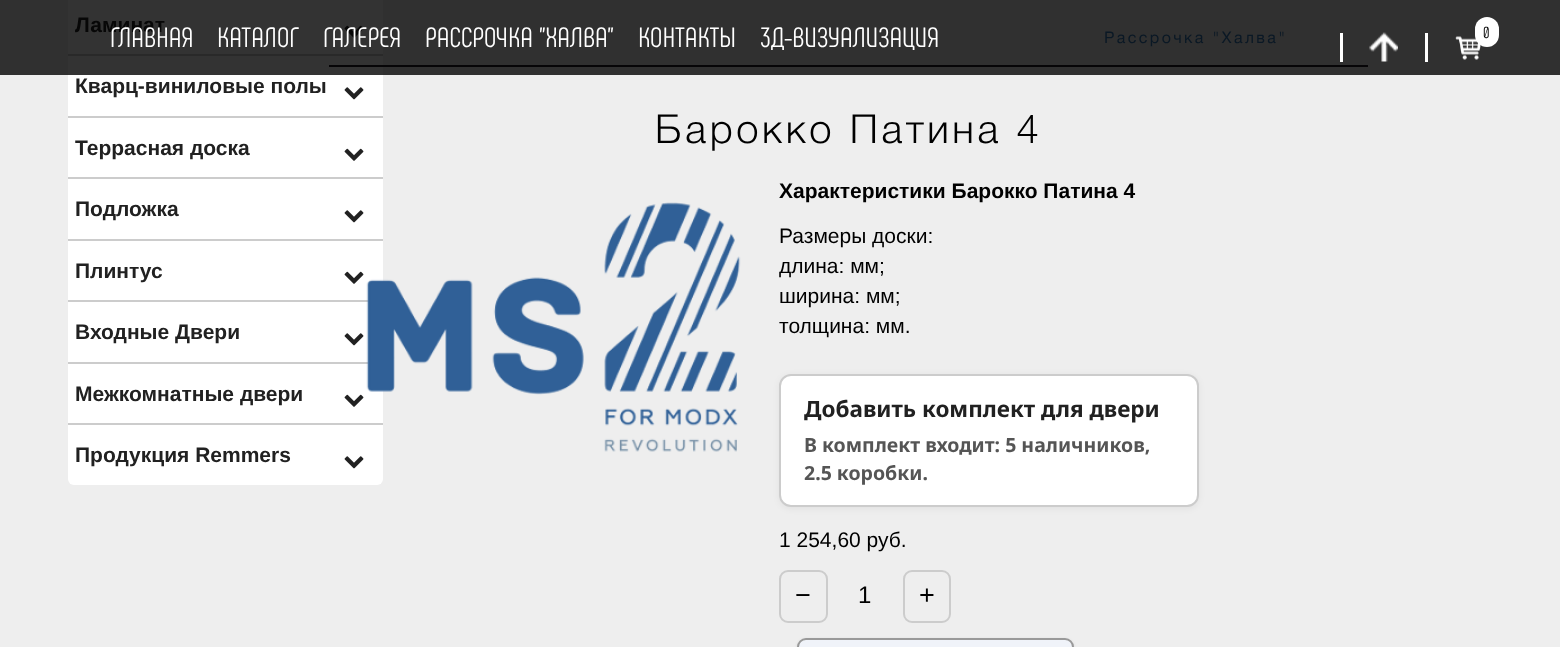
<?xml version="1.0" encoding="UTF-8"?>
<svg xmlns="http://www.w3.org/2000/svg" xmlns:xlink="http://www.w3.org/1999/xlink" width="1560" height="647">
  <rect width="100%" height="100%" fill="#eeeeee" />
  <rect width="1560" height="75" fill="#303030" />
  <rect x="68" y="-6" width="315" height="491" rx="6" fill="#ffffff" />
  <rect x="68" width="315" height="75" fill="#333333" />
  <rect x="68" y="54" width="315" height="2" fill="#292929" />
  <image x="344" y="25" width="20" height="13" xlink:href="image1.png" />
  <rect x="68" y="116" width="315" height="2" fill="#cccccc" />
  <image x="344" y="87" width="20" height="13" xlink:href="image2.png" />
  <rect x="68" y="177" width="315" height="2" fill="#cccccc" />
  <image x="344" y="148" width="20" height="13" xlink:href="image3.png" />
  <rect x="68" y="239" width="315" height="2" fill="#cccccc" />
  <image x="344" y="210" width="20" height="13" xlink:href="image2.png" />
  <rect x="68" y="300" width="301" height="2" fill="#cccccc" />
  <image x="344" y="271" width="20" height="13" xlink:href="image3.png" />
  <rect x="68" y="362" width="301" height="2" fill="#cccccc" />
  <image x="344" y="333" width="20" height="13" xlink:href="image2.png" />
  <rect x="68" y="423" width="315" height="2" fill="#cccccc" />
  <image x="344" y="394" width="20" height="13" xlink:href="image3.png" />
  <image x="344" y="456" width="20" height="13" xlink:href="image2.png" />
  <rect x="329" y="65" width="1039" height="2" fill="#060507" />
  <image x="366" y="202" width="375" height="250" xlink:href="image4.png" />
  <rect x="779" y="375" width="420" height="134" rx="12" fill="#000000" fill-opacity="0.05" filter="blur(3px)" />
  <rect x="780" y="375" width="418" height="131" rx="11" fill="#ffffff" stroke="#cccccc" stroke-width="2" />
  <rect x="780" y="571" width="47" height="51" rx="8" fill="none" stroke="#cccccc" stroke-width="2" />
  <rect x="904" y="571" width="46" height="51" rx="8" fill="none" stroke="#cccccc" stroke-width="2" />
  <rect x="797" y="639" width="277" height="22" rx="9" fill="#000000" fill-opacity="0.1" filter="blur(1.5px)" />
  <rect x="798" y="639" width="275" height="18" rx="8" fill="#f0f3f9" stroke="#999999" stroke-width="2" />
  <rect x="1340" y="33" width="3" height="29" fill="#ffffff" />
  <image x="1369" y="32" width="29" height="30" xlink:href="image5.png" />
  <rect x="1425" y="33" width="3" height="29" fill="#ffffff" />
  <image x="1455" y="36" width="26" height="24" xlink:href="image6.png" />
  <rect x="1475" y="17" width="24" height="30" rx="12" fill="#ffffff" />
  <text x="75" y="32" style="font-family: Liberation Sans; font-size: 21px; font-weight: bold; fill: #070707">Ламинат</text>
  <text x="75" y="93" style="font-family: Liberation Sans; font-size: 21px; font-weight: bold; fill: #212121">Кварц-виниловые полы</text>
  <text x="75" y="155" style="font-family: Liberation Sans; font-size: 21px; font-weight: bold; fill: #212121">Террасная доска</text>
  <text x="75" y="216" style="font-family: Liberation Sans; font-size: 21px; font-weight: bold; fill: #212121">Подложка</text>
  <text x="75" y="278" style="font-family: Liberation Sans; font-size: 21px; font-weight: bold; fill: #212121">Плинтус</text>
  <text x="75" y="339" style="font-family: Liberation Sans; font-size: 21px; font-weight: bold; fill: #212121">Входные Двери</text>
  <text x="75" y="401" style="font-family: Liberation Sans; font-size: 21px; font-weight: bold; fill: #212121">Межкомнатные двери</text>
  <text x="75" y="462" style="font-family: Liberation Sans; font-size: 21px; font-weight: bold; fill: #212121">Продукция Remmers</text>
  <text x="1104" y="43" style="font-family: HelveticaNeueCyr; font-size: 16px; letter-spacing: 2.4px; fill: #0a1825">Рассрочка "Халва"</text>
  <text x="655" y="143" style="font-family: HelveticaNeueCyr; font-size: 40px; font-weight: 300; letter-spacing: 3.6px; fill: #000000">Барокко Патина 4</text>
  <text x="779" y="198" style="font-family: Liberation Sans; font-size: 21px; font-weight: bold; fill: #000000">Характеристики Барокко Патина 4</text>
  <text x="779" y="243" style="font-family: Liberation Sans; font-size: 21px; fill: #000000">Размеры доски:</text>
  <text x="779" y="273" style="font-family: Liberation Sans; font-size: 21px; fill: #000000">длина: мм;</text>
  <text x="779" y="303" style="font-family: Liberation Sans; font-size: 21px; fill: #000000">ширина: мм;</text>
  <text x="779" y="333" style="font-family: Liberation Sans; font-size: 21px; fill: #000000">толщина: мм.</text>
  <text x="804" y="417" style="font-family: Noto Sans; font-size: 22.5px; font-weight: bold; fill: #212121">Добавить комплект для двери</text>
  <text x="804" y="452" style="font-family: Noto Sans; font-size: 19.5px; font-weight: bold; fill: #555555">В комплект входит: 5 наличников,</text>
  <text x="804" y="480" style="font-family: Noto Sans; font-size: 19.5px; font-weight: bold; fill: #555555">2.5 коробки.</text>
  <text x="779" y="547" style="font-family: Liberation Sans; font-size: 21px; fill: #000000">1 254,60 руб.</text>
  <text x="795" y="604" style="font-family: Liberation Sans; font-size: 27px; fill: #000000">−</text>
  <text x="858" y="603" style="font-family: Liberation Sans; font-size: 24px; fill: #000000">1</text>
  <text x="919" y="604" style="font-family: Liberation Sans; font-size: 27px; fill: #000000">+</text>
  <text x="110" y="47" style="font-family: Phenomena; font-size: 28px; fill: #ffffff">ГЛАВНАЯ</text>
  <text x="217" y="47" style="font-family: Phenomena; font-size: 28px; fill: #ffffff">КАТАЛОГ</text>
  <text x="323" y="47" style="font-family: Phenomena; font-size: 28px; fill: #ffffff">ГАЛЕРЕЯ</text>
  <text x="425" y="47" style="font-family: Phenomena; font-size: 28px; fill: #ffffff">РАССРОЧКА "ХАЛВА"</text>
  <text x="638" y="47" style="font-family: Phenomena; font-size: 28px; fill: #ffffff">КОНТАКТЫ</text>
  <text x="760" y="47" style="font-family: Phenomena; font-size: 28px; fill: #ffffff">3Д-ВИЗУАЛИЗАЦИЯ</text>
  <text x="1483" y="38" style="font-family: Phenomena; font-size: 16px; fill: #000000">0</text>
</svg>
